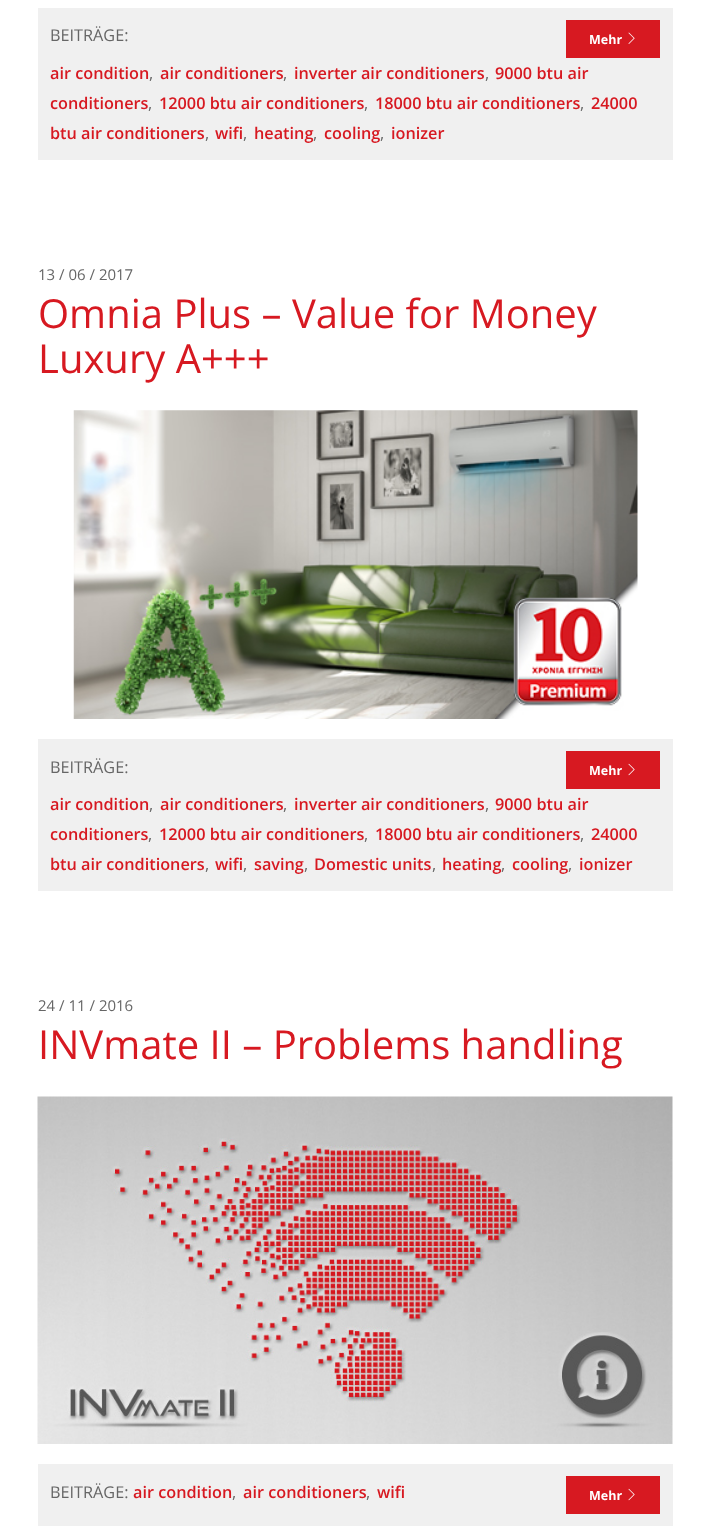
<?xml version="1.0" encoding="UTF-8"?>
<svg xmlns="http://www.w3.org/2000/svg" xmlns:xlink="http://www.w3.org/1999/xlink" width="709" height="1530">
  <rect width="100%" height="100%" fill="#ffffff" />
  <rect x="38" y="8" width="635" height="152" fill="#f0f0f0" />
  <rect x="566" y="20" width="94" height="38" fill="#d71921" />
  <image x="628" y="32" width="7" height="12" xlink:href="image1.png" />
  <image x="73" y="410" width="565" height="309" xlink:href="image2.png" />
  <rect x="38" y="739" width="635" height="152" fill="#f0f0f0" />
  <rect x="566" y="751" width="94" height="38" fill="#d71921" />
  <image x="628" y="763" width="7" height="13" xlink:href="image3.png" />
  <image x="37" y="1096" width="636" height="348" xlink:href="image4.png" />
  <rect x="38" y="1464" width="635" height="62" fill="#f0f0f0" />
  <rect x="566" y="1476" width="94" height="38" fill="#d71921" />
  <image x="628" y="1488" width="7" height="13" xlink:href="image3.png" />
  <text x="50" y="41" style="font-family: Open Sans; font-size: 16.25px; fill: #666666">BEITRÄGE:</text>
  <text x="589" y="44" style="font-family: Open Sans; font-size: 12.5px; font-weight: bold; fill: #ffffff">Mehr</text>
  <text x="50" y="79" style="font-family: Open Sans; font-size: 16.25px; font-weight: 600; fill: #d71921">air condition</text>
  <text x="149" y="79" style="font-family: Open Sans; font-size: 16.25px; fill: #666666">,</text>
  <text x="160" y="79" style="font-family: Open Sans; font-size: 16.25px; font-weight: 600; fill: #d71921">air conditioners</text>
  <text x="283" y="79" style="font-family: Open Sans; font-size: 16.25px; fill: #666666">,</text>
  <text x="294" y="79" style="font-family: Open Sans; font-size: 16.25px; font-weight: 600; fill: #d71921">inverter air conditioners</text>
  <text x="485" y="79" style="font-family: Open Sans; font-size: 16.25px; fill: #666666">,</text>
  <text x="495" y="79" style="font-family: Open Sans; font-size: 16.25px; font-weight: 600; fill: #d71921">9000 btu air</text>
  <text x="50" y="109" style="font-family: Open Sans; font-size: 16.25px; font-weight: 600; fill: #d71921">conditioners</text>
  <text x="148" y="109" style="font-family: Open Sans; font-size: 16.25px; fill: #666666">,</text>
  <text x="159" y="109" style="font-family: Open Sans; font-size: 16.25px; font-weight: 600; fill: #d71921">12000 btu air conditioners</text>
  <text x="364" y="109" style="font-family: Open Sans; font-size: 16.25px; fill: #666666">,</text>
  <text x="375" y="109" style="font-family: Open Sans; font-size: 16.25px; font-weight: 600; fill: #d71921">18000 btu air conditioners</text>
  <text x="580" y="109" style="font-family: Open Sans; font-size: 16.25px; fill: #666666">,</text>
  <text x="591" y="109" style="font-family: Open Sans; font-size: 16.25px; font-weight: 600; fill: #d71921">24000</text>
  <text x="50" y="139" style="font-family: Open Sans; font-size: 16.25px; font-weight: 600; fill: #d71921">btu air conditioners</text>
  <text x="205" y="139" style="font-family: Open Sans; font-size: 16.25px; fill: #666666">,</text>
  <text x="215" y="139" style="font-family: Open Sans; font-size: 16.25px; font-weight: 600; fill: #d71921">wifi</text>
  <text x="243" y="139" style="font-family: Open Sans; font-size: 16.25px; fill: #666666">,</text>
  <text x="254" y="139" style="font-family: Open Sans; font-size: 16.25px; font-weight: 600; fill: #d71921">heating</text>
  <text x="313" y="139" style="font-family: Open Sans; font-size: 16.25px; fill: #666666">,</text>
  <text x="324" y="139" style="font-family: Open Sans; font-size: 16.25px; font-weight: 600; fill: #d71921">cooling</text>
  <text x="380" y="139" style="font-family: Open Sans; font-size: 16.25px; fill: #666666">,</text>
  <text x="391" y="139" style="font-family: Open Sans; font-size: 16.25px; font-weight: 600; fill: #d71921">ionizer</text>
  <text x="38" y="280" style="font-family: Open Sans; font-size: 15px; fill: #666666">13 / 06 / 2017</text>
  <text x="38" y="328" style="font-family: Open Sans; font-size: 40px; fill: #d71921">Omnia Plus – Value for Money</text>
  <text x="38" y="373" style="font-family: Open Sans; font-size: 40px; fill: #d71921">Luxury A+++</text>
  <text x="50" y="773" style="font-family: Open Sans; font-size: 16.25px; fill: #666666">BEITRÄGE:</text>
  <text x="589" y="775" style="font-family: Open Sans; font-size: 12.5px; font-weight: bold; fill: #ffffff">Mehr</text>
  <text x="50" y="810" style="font-family: Open Sans; font-size: 16.25px; font-weight: 600; fill: #d71921">air condition</text>
  <text x="149" y="810" style="font-family: Open Sans; font-size: 16.25px; fill: #666666">,</text>
  <text x="160" y="810" style="font-family: Open Sans; font-size: 16.25px; font-weight: 600; fill: #d71921">air conditioners</text>
  <text x="283" y="810" style="font-family: Open Sans; font-size: 16.25px; fill: #666666">,</text>
  <text x="294" y="810" style="font-family: Open Sans; font-size: 16.25px; font-weight: 600; fill: #d71921">inverter air conditioners</text>
  <text x="485" y="810" style="font-family: Open Sans; font-size: 16.25px; fill: #666666">,</text>
  <text x="495" y="810" style="font-family: Open Sans; font-size: 16.25px; font-weight: 600; fill: #d71921">9000 btu air</text>
  <text x="50" y="840" style="font-family: Open Sans; font-size: 16.25px; font-weight: 600; fill: #d71921">conditioners</text>
  <text x="148" y="840" style="font-family: Open Sans; font-size: 16.25px; fill: #666666">,</text>
  <text x="159" y="840" style="font-family: Open Sans; font-size: 16.25px; font-weight: 600; fill: #d71921">12000 btu air conditioners</text>
  <text x="364" y="840" style="font-family: Open Sans; font-size: 16.25px; fill: #666666">,</text>
  <text x="375" y="840" style="font-family: Open Sans; font-size: 16.25px; font-weight: 600; fill: #d71921">18000 btu air conditioners</text>
  <text x="580" y="840" style="font-family: Open Sans; font-size: 16.25px; fill: #666666">,</text>
  <text x="591" y="840" style="font-family: Open Sans; font-size: 16.25px; font-weight: 600; fill: #d71921">24000</text>
  <text x="50" y="870" style="font-family: Open Sans; font-size: 16.25px; font-weight: 600; fill: #d71921">btu air conditioners</text>
  <text x="205" y="870" style="font-family: Open Sans; font-size: 16.25px; fill: #666666">,</text>
  <text x="215" y="870" style="font-family: Open Sans; font-size: 16.25px; font-weight: 600; fill: #d71921">wifi</text>
  <text x="243" y="870" style="font-family: Open Sans; font-size: 16.25px; fill: #666666">,</text>
  <text x="254" y="870" style="font-family: Open Sans; font-size: 16.25px; font-weight: 600; fill: #d71921">saving</text>
  <text x="304" y="870" style="font-family: Open Sans; font-size: 16.25px; fill: #666666">,</text>
  <text x="314" y="870" style="font-family: Open Sans; font-size: 16.25px; font-weight: 600; fill: #d71921">Domestic units</text>
  <text x="432" y="870" style="font-family: Open Sans; font-size: 16.25px; fill: #666666">,</text>
  <text x="442" y="870" style="font-family: Open Sans; font-size: 16.25px; font-weight: 600; fill: #d71921">heating</text>
  <text x="501" y="870" style="font-family: Open Sans; font-size: 16.25px; fill: #666666">,</text>
  <text x="512" y="870" style="font-family: Open Sans; font-size: 16.25px; font-weight: 600; fill: #d71921">cooling</text>
  <text x="568" y="870" style="font-family: Open Sans; font-size: 16.25px; fill: #666666">,</text>
  <text x="579" y="870" style="font-family: Open Sans; font-size: 16.25px; font-weight: 600; fill: #d71921">ionizer</text>
  <text x="38" y="1011" style="font-family: Open Sans; font-size: 15px; fill: #666666">24 / 11 / 2016</text>
  <text x="38" y="1059" style="font-family: Open Sans; font-size: 40px; fill: #d71921">INVmate II – Problems handling</text>
  <text x="50" y="1498" style="font-family: Open Sans; font-size: 16.25px; fill: #666666">BEITRÄGE:</text>
  <text x="133" y="1498" style="font-family: Open Sans; font-size: 16.25px; font-weight: 600; fill: #d71921">air condition</text>
  <text x="243" y="1498" style="font-family: Open Sans; font-size: 16.25px; font-weight: 600; fill: #d71921">air conditioners</text>
  <text x="377" y="1498" style="font-family: Open Sans; font-size: 16.25px; font-weight: 600; fill: #d71921">wifi</text>
  <text x="232" y="1498" style="font-family: Open Sans; font-size: 16.25px; fill: #666666">,</text>
  <text x="366" y="1498" style="font-family: Open Sans; font-size: 16.25px; fill: #666666">,</text>
  <text x="589" y="1500" style="font-family: Open Sans; font-size: 12.5px; font-weight: bold; fill: #ffffff">Mehr</text>
</svg>
